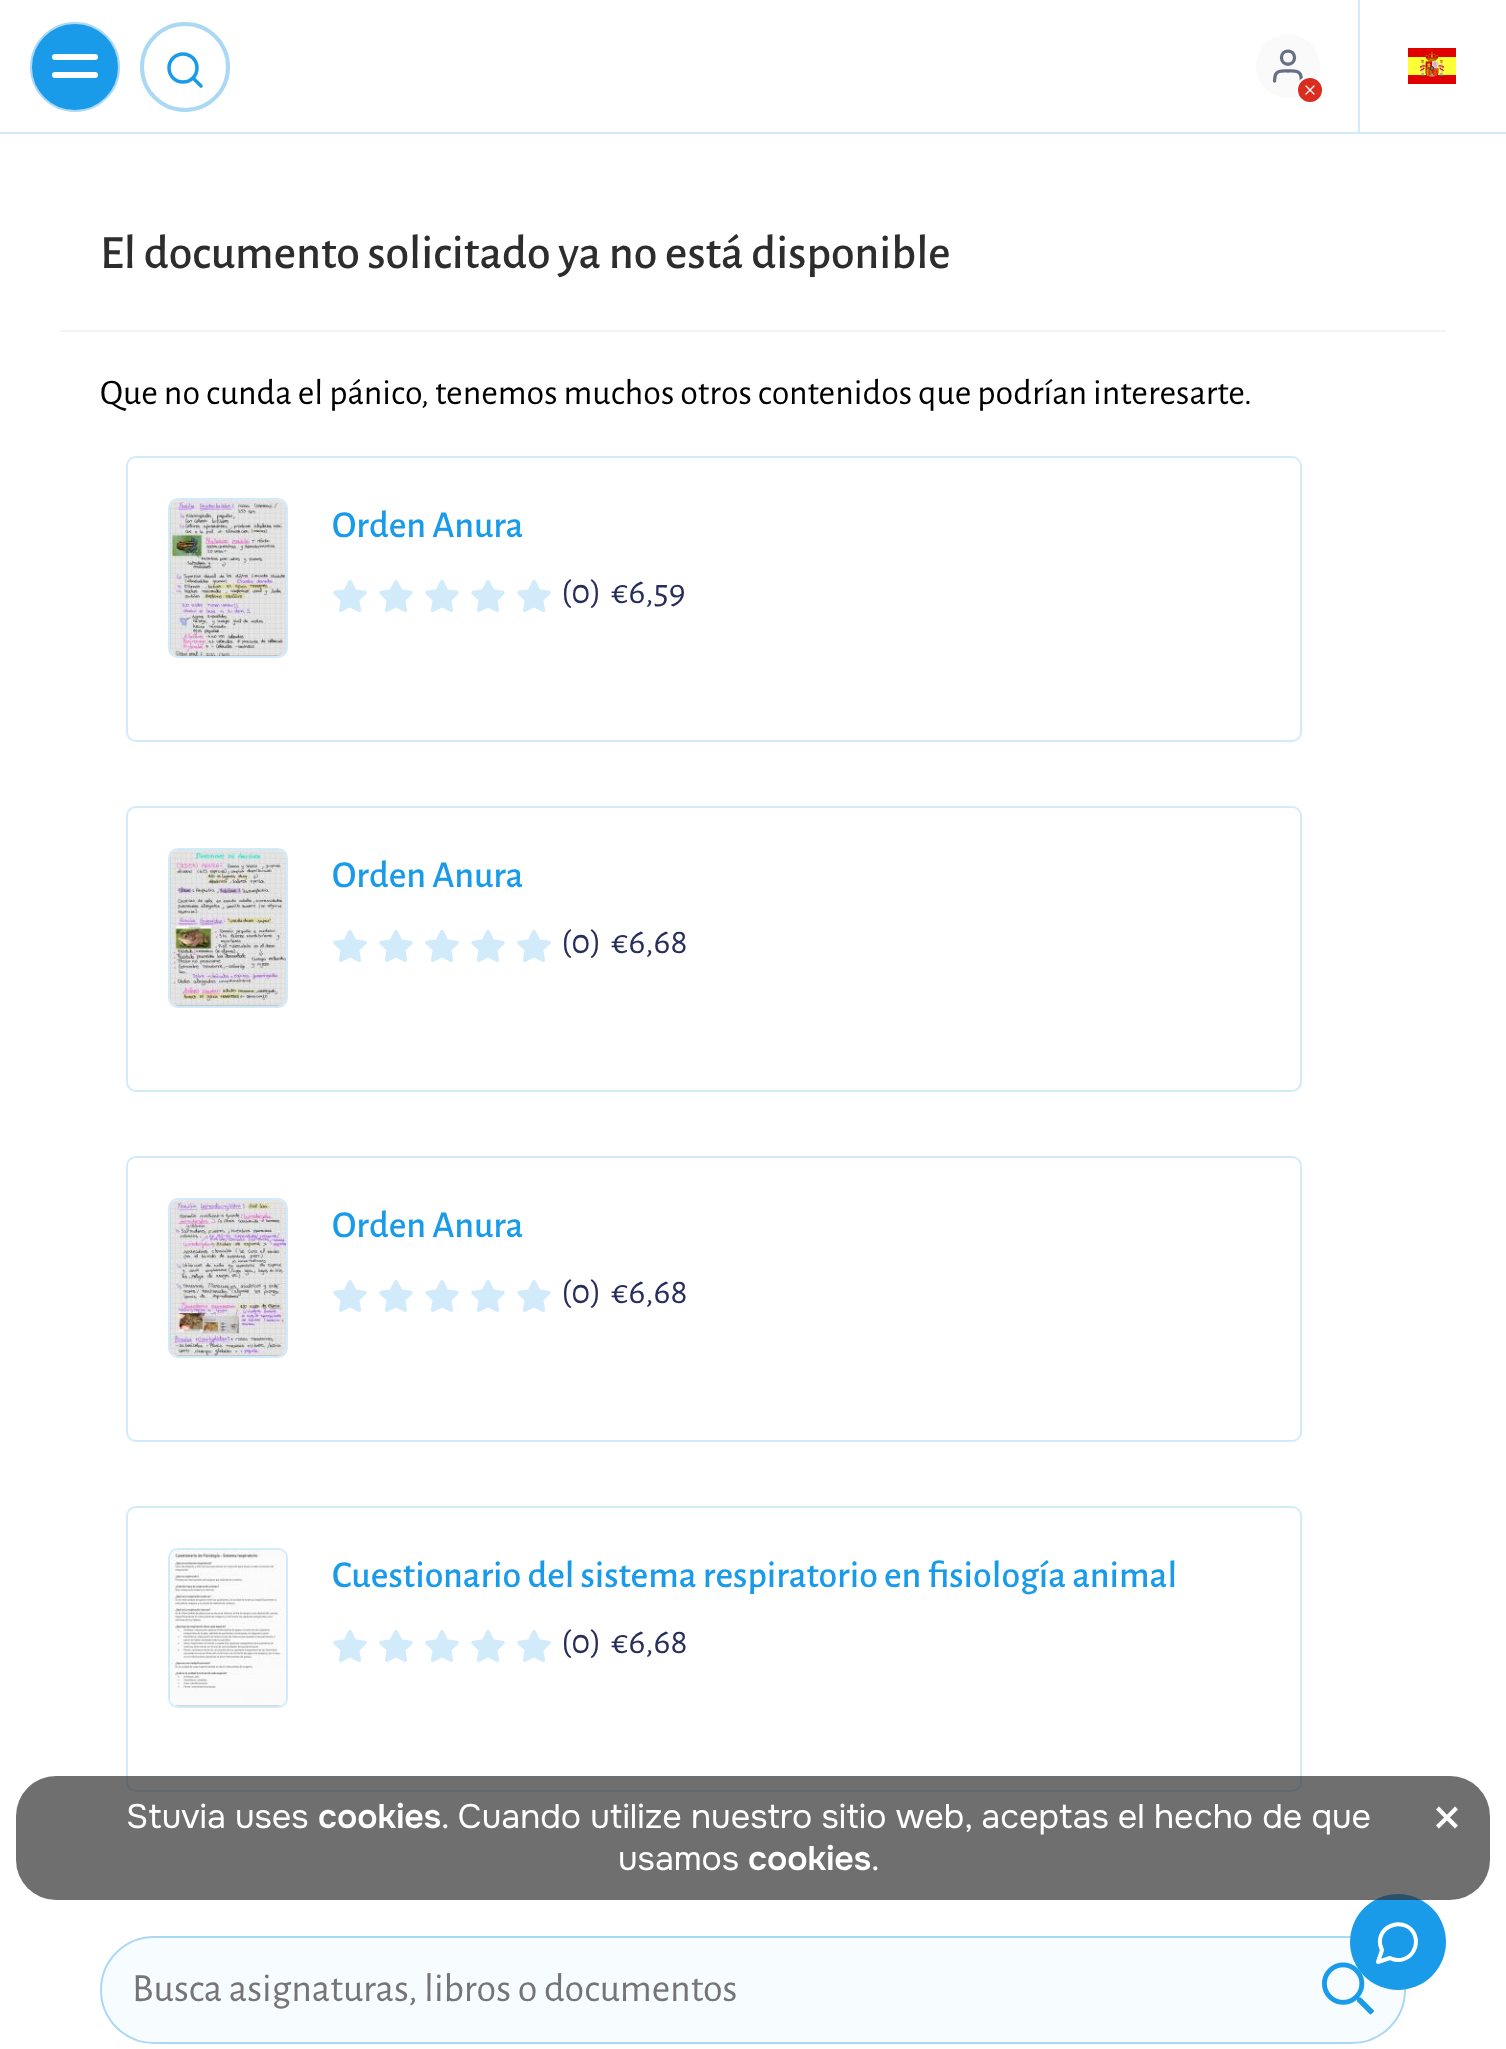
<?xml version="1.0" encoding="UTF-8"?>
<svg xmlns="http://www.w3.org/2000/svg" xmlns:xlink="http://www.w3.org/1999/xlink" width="1506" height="2049">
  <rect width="100%" height="100%" fill="#ffffff" />
  <rect y="132" width="1506" height="2" fill="#d1ebfb" />
  <circle cx="75" cy="67" r="44" fill="#199be9" stroke="#aad8f5" stroke-width="2" />
  <rect x="52" y="54" width="46" height="6" rx="3" fill="#ffffff" />
  <rect x="52" y="72" width="46" height="6" rx="3" fill="#ffffff" />
  <circle cx="185" cy="67" r="43" fill="none" stroke="#aad8f5" stroke-width="4" />
  <circle cx="183" cy="68" r="14" fill="none" stroke="#199be9" stroke-width="3.5" />
  <path d="M 201 86 l -8 -8" fill="none" stroke="#199be9" stroke-width="3.5" stroke-linecap="round" stroke-linejoin="round" />
  <circle cx="1288" cy="66" r="32" fill="#fafafa" />
  <path d="M 1301.5 81 l -0.5 -4.5 c -1 -6.5 -8 -5.5 -13 -5.5 c -5 0 -12 -1 -13 5.5 l -0.5 4.5 m 20 -23.5 c 0 9 -13 9 -13 0 c 0 -8.5 13 -8.5 13 0 z" fill="none" stroke="#667085" stroke-width="3.3" stroke-linecap="round" stroke-linejoin="round" />
  <circle cx="1310" cy="90" r="13" fill="#d92d20" stroke="#ffffff" stroke-width="2" />
  <image x="1305" y="85" width="10" height="10" xlink:href="image1.png" />
  <rect x="1358" width="2" height="132" fill="#d1ebfb" />
  <image x="1408" y="48" width="48" height="36" xlink:href="image2.png" />
  <rect x="60" y="330" width="1386" height="2" fill="#f4f4f4" />
  <rect x="127" y="457" width="1174" height="284" rx="9" fill="none" stroke="#d1ebfb" stroke-width="2" />
  <rect x="169" y="499" width="118" height="158" rx="9" fill="none" stroke="#d1ebfb" stroke-width="2" />
  <image x="170" y="500" width="116" height="156" xlink:href="image3.png" />
  <image x="333" y="580" width="34" height="32" xlink:href="image4.png" />
  <image x="379" y="580" width="34" height="32" xlink:href="image4.png" />
  <image x="425" y="580" width="34" height="32" xlink:href="image4.png" />
  <image x="471" y="580" width="34" height="32" xlink:href="image4.png" />
  <image x="517" y="580" width="34" height="32" xlink:href="image4.png" />
  <rect x="127" y="807" width="1174" height="284" rx="9" fill="none" stroke="#d1ebfb" stroke-width="2" />
  <rect x="169" y="849" width="118" height="158" rx="9" fill="none" stroke="#d1ebfb" stroke-width="2" />
  <image x="170" y="850" width="116" height="156" xlink:href="image5.png" />
  <image x="333" y="930" width="34" height="32" xlink:href="image4.png" />
  <image x="379" y="930" width="34" height="32" xlink:href="image4.png" />
  <image x="425" y="930" width="34" height="32" xlink:href="image4.png" />
  <image x="471" y="930" width="34" height="32" xlink:href="image4.png" />
  <image x="517" y="930" width="34" height="32" xlink:href="image4.png" />
  <rect x="127" y="1157" width="1174" height="284" rx="9" fill="none" stroke="#d1ebfb" stroke-width="2" />
  <rect x="169" y="1199" width="118" height="158" rx="9" fill="none" stroke="#d1ebfb" stroke-width="2" />
  <image x="170" y="1200" width="116" height="156" xlink:href="image6.png" />
  <image x="333" y="1280" width="34" height="32" xlink:href="image4.png" />
  <image x="379" y="1280" width="34" height="32" xlink:href="image4.png" />
  <image x="425" y="1280" width="34" height="32" xlink:href="image4.png" />
  <image x="471" y="1280" width="34" height="32" xlink:href="image4.png" />
  <image x="517" y="1280" width="34" height="32" xlink:href="image4.png" />
  <rect x="127" y="1507" width="1174" height="284" rx="9" fill="none" stroke="#d1ebfb" stroke-width="2" />
  <rect x="169" y="1549" width="118" height="158" rx="9" fill="none" stroke="#d1ebfb" stroke-width="2" />
  <image x="170" y="1550" width="116" height="156" xlink:href="image7.png" />
  <image x="333" y="1630" width="34" height="32" xlink:href="image4.png" />
  <image x="379" y="1630" width="34" height="32" xlink:href="image4.png" />
  <image x="425" y="1630" width="34" height="32" xlink:href="image4.png" />
  <image x="471" y="1630" width="34" height="32" xlink:href="image4.png" />
  <image x="517" y="1630" width="34" height="32" xlink:href="image4.png" />
  <rect x="101" y="1937" width="1304" height="106" rx="53" fill="#f6fcff" stroke="#aad8f5" stroke-width="2" />
  <image x="1322" y="1962" width="52" height="53" xlink:href="image8.png" />
  <circle cx="1398" cy="1942" r="48" fill="#199be9" />
  <rect x="16" y="1776" width="1474" height="124" rx="40" fill="#323232" fill-opacity="0.7" />
  <path d="M 1390 1958 c 8.5 4.5 20 1 24 -8 c 2.5 -5 2.5 -10.5 0.5 -15.5 c -7.5 -16 -31.5 -12.5 -34.5 5 c -0.5 3.5 0.5 7.5 2 10.5 l -4 12 z" fill="none" stroke="#ffffff" stroke-width="4" stroke-linecap="round" stroke-linejoin="round" />
  <text x="100" y="268" style="font-family: Alegreya Sans; font-size: 48px; font-weight: 500; fill: #2d2d2d">El documento solicitado ya no está disponible</text>
  <text x="100" y="404" style="font-family: Alegreya Sans; font-size: 36px; fill: #000000">Que no cunda el pánico, tenemos muchos otros contenidos que podrían interesarte.</text>
  <text x="332" y="537" style="font-family: Alegreya Sans; font-size: 38px; font-weight: 500; fill: #199be9">Orden Anura</text>
  <text x="561" y="603" style="font-family: Alegreya Sans; font-size: 36px; fill: #272e5d">(0)</text>
  <text x="611" y="603" style="font-family: Alegreya Sans; font-size: 36px; fill: #272e5d">€6,59</text>
  <text x="332" y="887" style="font-family: Alegreya Sans; font-size: 38px; font-weight: 500; fill: #199be9">Orden Anura</text>
  <text x="561" y="953" style="font-family: Alegreya Sans; font-size: 36px; fill: #272e5d">(0)</text>
  <text x="611" y="953" style="font-family: Alegreya Sans; font-size: 36px; fill: #272e5d">€6,68</text>
  <text x="332" y="1237" style="font-family: Alegreya Sans; font-size: 38px; font-weight: 500; fill: #199be9">Orden Anura</text>
  <text x="561" y="1303" style="font-family: Alegreya Sans; font-size: 36px; fill: #272e5d">(0)</text>
  <text x="611" y="1303" style="font-family: Alegreya Sans; font-size: 36px; fill: #272e5d">€6,68</text>
  <text x="332" y="1587" style="font-family: Alegreya Sans; font-size: 38px; font-weight: 500; fill: #199be9">Cuestionario del sistema respiratorio en fisiología animal</text>
  <text x="561" y="1653" style="font-family: Alegreya Sans; font-size: 36px; fill: #272e5d">(0)</text>
  <text x="611" y="1653" style="font-family: Alegreya Sans; font-size: 36px; fill: #272e5d">€6,68</text>
  <text x="132" y="2001" style="font-family: Alegreya Sans; font-size: 40px; fill: #757575">Busca asignaturas, libros o documentos</text>
  <text x="126" y="1828" style="font-family: Onest; font-size: 34px; fill: #ffffff">Stuvia uses</text>
  <text x="318" y="1828" style="font-family: Onest; font-size: 34px; font-weight: 600; fill: #ffffff">cookies</text>
  <text x="441" y="1828" style="font-family: Onest; font-size: 34px; fill: #ffffff">. Cuando utilize nuestro sitio web, aceptas el hecho de que</text>
  <text x="618" y="1870" style="font-family: Onest; font-size: 34px; fill: #ffffff">usamos</text>
  <text x="748" y="1870" style="font-family: Onest; font-size: 34px; font-weight: 600; fill: #ffffff">cookies</text>
  <text x="871" y="1870" style="font-family: Onest; font-size: 34px; fill: #ffffff">.</text>
  <text x="1431" y="1838" style="font-family: Onest; font-size: 58px; fill: #ffffff">×</text>
</svg>
